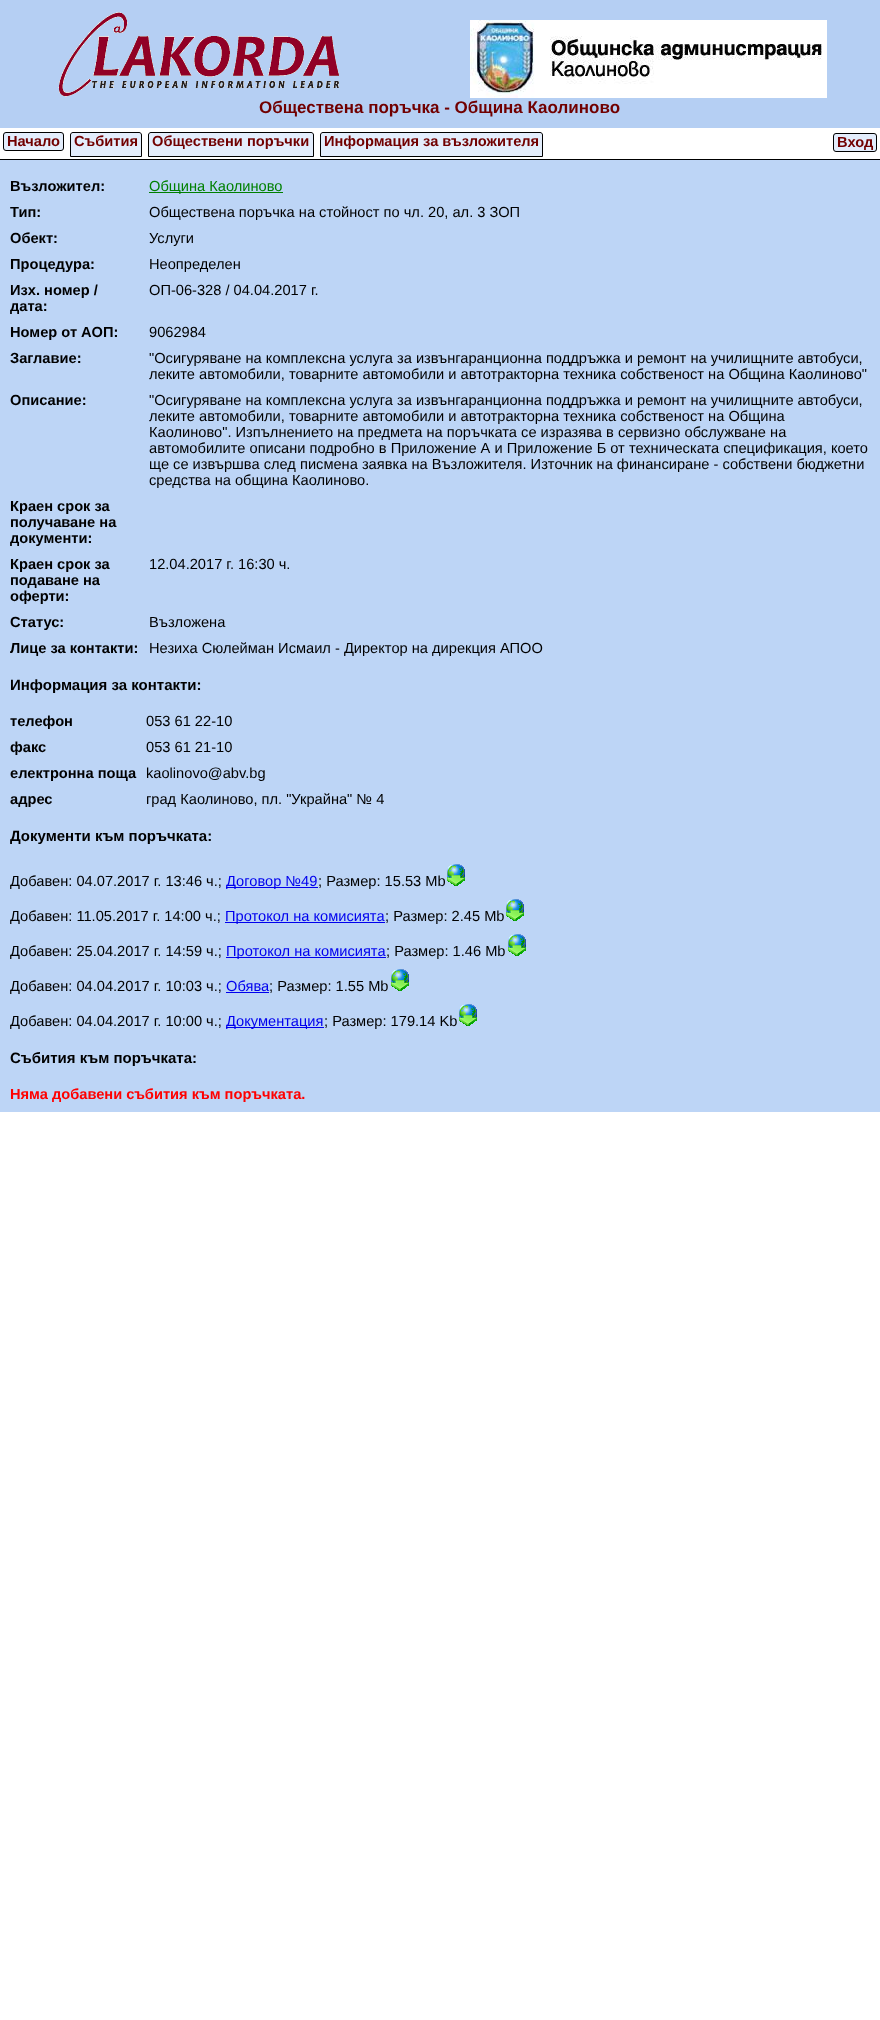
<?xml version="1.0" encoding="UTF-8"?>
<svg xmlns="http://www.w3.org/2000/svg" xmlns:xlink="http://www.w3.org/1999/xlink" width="880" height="2020">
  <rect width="100%" height="100%" fill="#ffffff" />
  <rect width="880" height="128" fill="#b5cff3" />
  <image x="58" y="12" width="281" height="85" xlink:href="image1.png" />
  <image x="470" y="20" width="357" height="78" xlink:href="image2.png" />
  <rect y="159" width="880" height="1" fill="#000000" />
  <rect x="3.5" y="132.5" width="60" height="18" rx="2.5" fill="#e3edfc" stroke="#000000" />
  <path d="M 73 132.5 h 66 c 1.5 0 2.5 1 2.5 2.5 v 21.5 h -71 v -21.5 c 0 -1.5 1 -2.5 2.5 -2.5 z" fill="#e3edfc" stroke="#000000" />
  <path d="M 151 132.5 h 160 c 1.5 0 2.5 1 2.5 2.5 v 21.5 h -165 v -21.5 c 0 -1.5 1 -2.5 2.5 -2.5 z" fill="#e3edfc" stroke="#000000" />
  <path d="M 323 132.5 h 217 c 1.5 0 2.5 1 2.5 2.5 v 21.5 h -222 v -21.5 c 0 -1.5 1 -2.5 2.5 -2.5 z" fill="#e3edfc" stroke="#000000" />
  <rect x="833.5" y="133.5" width="43" height="18" rx="2.5" fill="#e3edfc" stroke="#000000" />
  <rect y="160" width="880" height="952" fill="#bdd5f6" />
  <rect x="149" y="192" width="134" height="1" fill="#008000" />
  <rect x="226" y="887" width="92" height="1" fill="#0000ee" />
  <image x="447" y="864" width="18" height="22" xlink:href="image3.png" />
  <rect x="225" y="922" width="160" height="1" fill="#0000ee" />
  <image x="506" y="899" width="18" height="22" xlink:href="image3.png" />
  <rect x="226" y="957" width="160" height="1" fill="#0000ee" />
  <image x="508" y="934" width="18" height="22" xlink:href="image3.png" />
  <rect x="226" y="992" width="43" height="1" fill="#0000ee" />
  <image x="391" y="969" width="18" height="22" xlink:href="image3.png" />
  <rect x="226" y="1027" width="98" height="1" fill="#0000ee" />
  <image x="459" y="1004" width="18" height="22" xlink:href="image3.png" />
  <text x="259" y="113" style="font-family: Liberation Sans; font-size: 17px; font-weight: bold; fill: #710000">Обществена поръчка - Община Каолиново</text>
  <text x="7" y="146" style="font-family: Liberation Sans; font-size: 14.65px; font-weight: bold; fill: #710000">Начало</text>
  <text x="74" y="146" style="font-family: Liberation Sans; font-size: 14.65px; font-weight: bold; fill: #710000">Събития</text>
  <text x="152" y="146" style="font-family: Liberation Sans; font-size: 14.65px; font-weight: bold; fill: #710000">Обществени поръчки</text>
  <text x="324" y="146" style="font-family: Liberation Sans; font-size: 14.65px; font-weight: bold; fill: #710000">Информация за възложителя</text>
  <text x="837" y="147" style="font-family: Liberation Sans; font-size: 14.65px; font-weight: bold; fill: #710000">Вход</text>
  <text x="10" y="191" style="font-family: Liberation Sans; font-size: 14.65px; font-weight: bold; fill: #000000">Възложител:</text>
  <text x="149" y="191" style="font-family: Liberation Sans; font-size: 14.65px; fill: #008000">Община Каолиново</text>
  <text x="10" y="217" style="font-family: Liberation Sans; font-size: 14.65px; font-weight: bold; fill: #000000">Тип:</text>
  <text x="149" y="217" style="font-family: Liberation Sans; font-size: 14.65px; fill: #000000">Обществена поръчка на стойност по чл. 20, ал. 3 ЗОП</text>
  <text x="10" y="243" style="font-family: Liberation Sans; font-size: 14.65px; font-weight: bold; fill: #000000">Обект:</text>
  <text x="149" y="243" style="font-family: Liberation Sans; font-size: 14.65px; fill: #000000">Услуги</text>
  <text x="10" y="269" style="font-family: Liberation Sans; font-size: 14.65px; font-weight: bold; fill: #000000">Процедура:</text>
  <text x="149" y="269" style="font-family: Liberation Sans; font-size: 14.65px; fill: #000000">Неопределен</text>
  <text x="10" y="295" style="font-family: Liberation Sans; font-size: 14.65px; font-weight: bold; fill: #000000">Изх. номер /</text>
  <text x="10" y="311" style="font-family: Liberation Sans; font-size: 14.65px; font-weight: bold; fill: #000000">дата:</text>
  <text x="149" y="295" style="font-family: Liberation Sans; font-size: 14.65px; fill: #000000">ОП-06-328 / 04.04.2017 г.</text>
  <text x="10" y="337" style="font-family: Liberation Sans; font-size: 14.65px; font-weight: bold; fill: #000000">Номер от АОП:</text>
  <text x="149" y="337" style="font-family: Liberation Sans; font-size: 14.65px; fill: #000000">9062984</text>
  <text x="10" y="363" style="font-family: Liberation Sans; font-size: 14.65px; font-weight: bold; fill: #000000">Заглавие:</text>
  <text x="149" y="363" style="font-family: Liberation Sans; font-size: 14.65px; fill: #000000">"Осигуряване на комплексна услуга за извънгаранционна поддръжка и ремонт на училищните автобуси,</text>
  <text x="149" y="379" style="font-family: Liberation Sans; font-size: 14.65px; fill: #000000">леките автомобили, товарните автомобили и автотракторна техника собственост на Община Каолиново"</text>
  <text x="10" y="405" style="font-family: Liberation Sans; font-size: 14.65px; font-weight: bold; fill: #000000">Описание:</text>
  <text x="149" y="405" style="font-family: Liberation Sans; font-size: 14.65px; fill: #000000">"Осигуряване на комплексна услуга за извънгаранционна поддръжка и ремонт на училищните автобуси,</text>
  <text x="149" y="421" style="font-family: Liberation Sans; font-size: 14.65px; fill: #000000">леките автомобили, товарните автомобили и автотракторна техника собственост на Община</text>
  <text x="149" y="437" style="font-family: Liberation Sans; font-size: 14.65px; fill: #000000">Каолиново". Изпълнението на предмета на поръчката се изразява в сервизно обслужване на</text>
  <text x="149" y="453" style="font-family: Liberation Sans; font-size: 14.65px; fill: #000000">автомобилите описани подробно в Приложение А и Приложение Б от техническата спецификация, което</text>
  <text x="149" y="469" style="font-family: Liberation Sans; font-size: 14.65px; fill: #000000">ще се извършва след писмена заявка на Възложителя. Източник на финансиране - собствени бюджетни</text>
  <text x="149" y="485" style="font-family: Liberation Sans; font-size: 14.65px; fill: #000000">средства на община Каолиново.</text>
  <text x="10" y="511" style="font-family: Liberation Sans; font-size: 14.65px; font-weight: bold; fill: #000000">Краен срок за</text>
  <text x="10" y="527" style="font-family: Liberation Sans; font-size: 14.65px; font-weight: bold; fill: #000000">получаване на</text>
  <text x="10" y="543" style="font-family: Liberation Sans; font-size: 14.65px; font-weight: bold; fill: #000000">документи:</text>
  <text x="10" y="569" style="font-family: Liberation Sans; font-size: 14.65px; font-weight: bold; fill: #000000">Краен срок за</text>
  <text x="10" y="585" style="font-family: Liberation Sans; font-size: 14.65px; font-weight: bold; fill: #000000">подаване на</text>
  <text x="10" y="601" style="font-family: Liberation Sans; font-size: 14.65px; font-weight: bold; fill: #000000">оферти:</text>
  <text x="149" y="569" style="font-family: Liberation Sans; font-size: 14.65px; fill: #000000">12.04.2017 г. 16:30 ч.</text>
  <text x="10" y="627" style="font-family: Liberation Sans; font-size: 14.65px; font-weight: bold; fill: #000000">Статус:</text>
  <text x="149" y="627" style="font-family: Liberation Sans; font-size: 14.65px; fill: #000000">Възложена</text>
  <text x="10" y="653" style="font-family: Liberation Sans; font-size: 14.65px; font-weight: bold; fill: #000000">Лице за контакти:</text>
  <text x="149" y="653" style="font-family: Liberation Sans; font-size: 14.65px; fill: #000000">Незиха Сюлейман Исмаил - Директор на дирекция АПОО</text>
  <text x="10" y="690" style="font-family: Liberation Sans; font-size: 15px; font-weight: bold; fill: #000000">Информация за контакти:</text>
  <text x="10" y="726" style="font-family: Liberation Sans; font-size: 14.65px; font-weight: bold; fill: #000000">телефон</text>
  <text x="146" y="726" style="font-family: Liberation Sans; font-size: 14.65px; fill: #000000">053 61 22-10</text>
  <text x="10" y="752" style="font-family: Liberation Sans; font-size: 14.65px; font-weight: bold; fill: #000000">факс</text>
  <text x="146" y="752" style="font-family: Liberation Sans; font-size: 14.65px; fill: #000000">053 61 21-10</text>
  <text x="10" y="778" style="font-family: Liberation Sans; font-size: 14.65px; font-weight: bold; fill: #000000">електронна поща</text>
  <text x="146" y="778" style="font-family: Liberation Sans; font-size: 14.65px; fill: #000000">kaolinovo@abv.bg</text>
  <text x="10" y="804" style="font-family: Liberation Sans; font-size: 14.65px; font-weight: bold; fill: #000000">адрес</text>
  <text x="146" y="804" style="font-family: Liberation Sans; font-size: 14.65px; fill: #000000">град Каолиново, пл. "Украйна" № 4</text>
  <text x="10" y="841" style="font-family: Liberation Sans; font-size: 15px; font-weight: bold; fill: #000000">Документи към поръчката:</text>
  <text x="10" y="886" style="font-family: Liberation Sans; font-size: 14.65px; fill: #000000">Добавен: 04.07.2017 г. 13:46 ч.;</text>
  <text x="226" y="886" style="font-family: Liberation Sans; font-size: 14.65px; fill: #0000ee">Договор №49</text>
  <text x="318" y="886" style="font-family: Liberation Sans; font-size: 14.65px; fill: #000000">; Размер: 15.53 Mb</text>
  <text x="10" y="921" style="font-family: Liberation Sans; font-size: 14.65px; fill: #000000">Добавен: 11.05.2017 г. 14:00 ч.;</text>
  <text x="225" y="921" style="font-family: Liberation Sans; font-size: 14.65px; fill: #0000ee">Протокол на комисията</text>
  <text x="385" y="921" style="font-family: Liberation Sans; font-size: 14.65px; fill: #000000">; Размер: 2.45 Mb</text>
  <text x="10" y="956" style="font-family: Liberation Sans; font-size: 14.65px; fill: #000000">Добавен: 25.04.2017 г. 14:59 ч.;</text>
  <text x="226" y="956" style="font-family: Liberation Sans; font-size: 14.65px; fill: #0000ee">Протокол на комисията</text>
  <text x="386" y="956" style="font-family: Liberation Sans; font-size: 14.65px; fill: #000000">; Размер: 1.46 Mb</text>
  <text x="10" y="991" style="font-family: Liberation Sans; font-size: 14.65px; fill: #000000">Добавен: 04.04.2017 г. 10:03 ч.;</text>
  <text x="226" y="991" style="font-family: Liberation Sans; font-size: 14.65px; fill: #0000ee">Обява</text>
  <text x="269" y="991" style="font-family: Liberation Sans; font-size: 14.65px; fill: #000000">; Размер: 1.55 Mb</text>
  <text x="10" y="1026" style="font-family: Liberation Sans; font-size: 14.65px; fill: #000000">Добавен: 04.04.2017 г. 10:00 ч.;</text>
  <text x="226" y="1026" style="font-family: Liberation Sans; font-size: 14.65px; fill: #0000ee">Документация</text>
  <text x="324" y="1026" style="font-family: Liberation Sans; font-size: 14.65px; fill: #000000">; Размер: 179.14 Kb</text>
  <text x="10" y="1063" style="font-family: Liberation Sans; font-size: 15px; font-weight: bold; fill: #000000">Събития към поръчката:</text>
  <text x="10" y="1099" style="font-family: Liberation Sans; font-size: 14.65px; font-weight: bold; fill: #ff0000">Няма добавени събития към поръчката.</text>
</svg>
